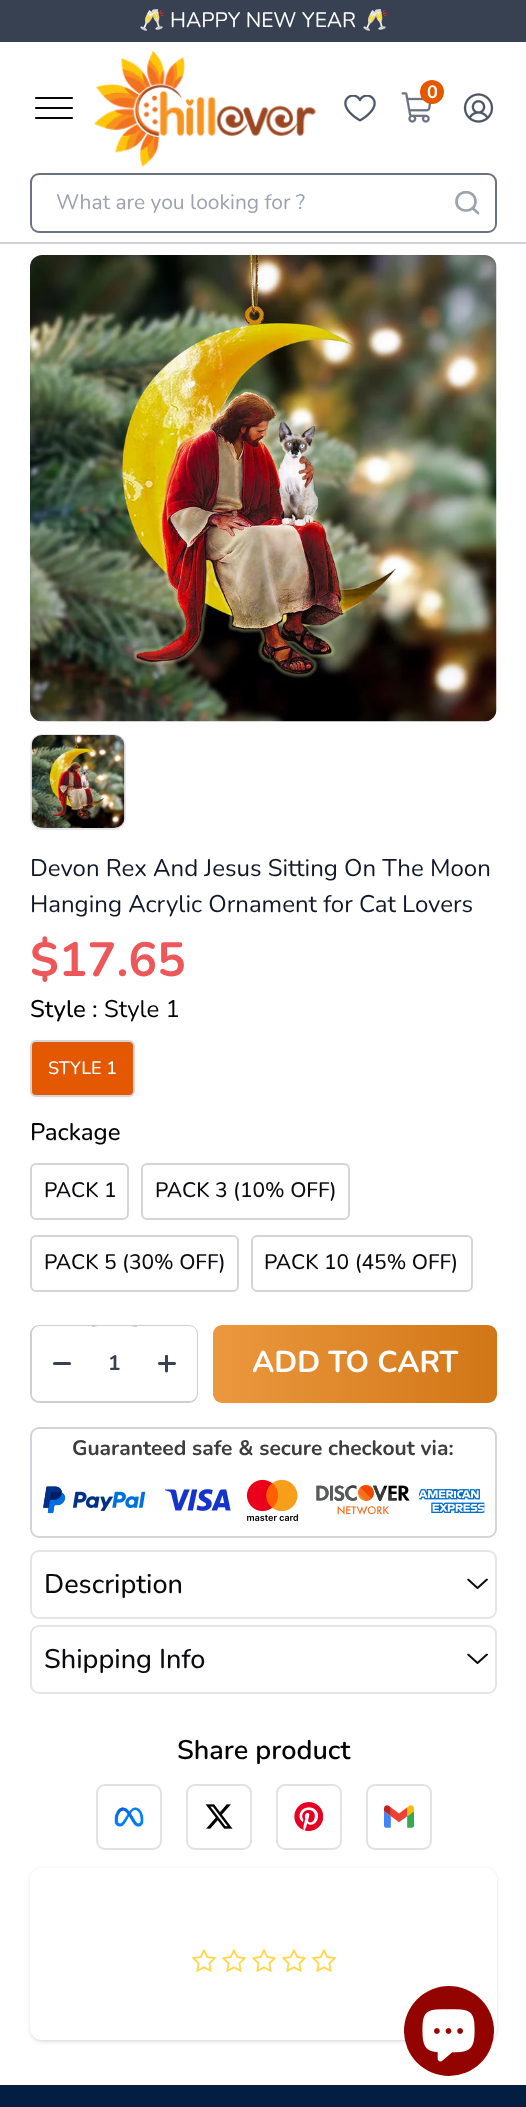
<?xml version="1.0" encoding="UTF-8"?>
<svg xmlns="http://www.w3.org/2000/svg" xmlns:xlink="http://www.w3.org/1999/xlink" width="526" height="2107">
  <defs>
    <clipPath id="clip1"><rect x="455" y="191" width="24" height="24" /></clipPath>
    <linearGradient id="g1" gradientUnits="userSpaceOnUse" x1="213" y1="1364" x2="497" y2="1364"><stop offset="0" stop-color="#ec983f" /><stop offset="1" stop-color="#d17616" /></linearGradient>
  </defs>
  <rect width="100%" height="100%" fill="#ffffff" />
  <rect width="526" height="42" fill="#374151" />
  <rect y="242" width="526" height="2" fill="#d1d1d6" />
  <path d="M 36 98 h 36 m -36 10 h 36 m -36 10 h 36" fill="none" stroke="#0c0507" stroke-width="2.2" stroke-linecap="round" />
  <image x="94" y="51" width="222" height="116" xlink:href="image1.png" />
  <image x="344" y="95" width="32" height="27" xlink:href="image2.png" />
  <image x="401" y="92" width="31" height="31" xlink:href="image3.png" />
  <circle cx="432" cy="92" r="12" fill="#e35800" />
  <image x="463" y="93" width="31" height="30" xlink:href="image4.png" />
  <rect x="31" y="174" width="465" height="58" rx="8" fill="none" stroke="#6b7280" stroke-width="2" />
  <g clip-path="url(#clip1)">
    <path d="M 478 213 l -5.5 -5 m 3 -6.5 c 0 12 -19 12 -19 0 c 0 -12.5 19 -12.5 19 0 z" fill="none" stroke="#9ca3af" stroke-width="2.7" stroke-linecap="round" stroke-linejoin="round" />
  </g>
  <image x="30" y="255" width="467" height="467" xlink:href="image5.png" />
  <rect x="31" y="735" width="94" height="94" rx="11" fill="none" stroke="#e5e7eb" stroke-width="2" />
  <image x="31" y="735" width="94" height="93" xlink:href="image6.png" />
  <rect x="30" y="1041" width="105" height="57" rx="6" fill="#000000" fill-opacity="0.05" filter="blur(1.5px)" />
  <rect x="31" y="1041" width="103" height="55" rx="5" fill="#e35800" stroke="#d5d5d5" stroke-width="2" />
  <rect x="31" y="1164" width="97" height="55" rx="5" fill="none" stroke="#d5d5d5" stroke-width="2" />
  <rect x="142" y="1164" width="207" height="55" rx="5" fill="none" stroke="#d5d5d5" stroke-width="2" />
  <rect x="31" y="1236" width="207" height="55" rx="5" fill="none" stroke="#d5d5d5" stroke-width="2" />
  <rect x="252" y="1236" width="220" height="55" rx="5" fill="none" stroke="#d5d5d5" stroke-width="2" />
  <rect x="31" y="1326" width="166" height="76" rx="8" fill="none" stroke="#cecfd2" stroke-width="2" />
  <path d="M 40 1326 h 52 v 75 h -52 c -4.5 0 -8 -3.5 -8 -8 v -59 c 0 -4.5 3.5 -8 8 -8 z" fill="#ffffff" />
  <rect x="53" y="1362" width="18" height="3" rx="1.5" fill="#374151" />
  <rect x="92" y="1326" width="45" height="75" rx="6" fill="#ffffff" />
  <path d="M 137 1326 h 52 c 4.5 0 8 3.5 8 8 v 59 c 0 4.5 -3.5 8 -8 8 h -52 z" fill="#ffffff" />
  <image x="158" y="1355" width="18" height="18" xlink:href="image7.png" />
  <rect x="213" y="1325" width="284" height="78" rx="9" fill="url(#g1)" />
  <rect x="31" y="1428" width="465" height="109" rx="8" fill="none" stroke="#d1d5db" stroke-width="2" />
  <image x="43" y="1486" width="103" height="28" xlink:href="image8.png" />
  <image x="165" y="1489" width="66" height="22" xlink:href="image9.png" />
  <image x="246" y="1479" width="52" height="42" xlink:href="image10.png" />
  <image x="316" y="1485" width="94" height="30" xlink:href="image11.png" />
  <image x="419" y="1489" width="66" height="24" xlink:href="image12.png" />
  <rect x="31" y="1551" width="465" height="67" rx="8" fill="none" stroke="#e5e5e5" stroke-width="2" />
  <image x="467" y="1578" width="21" height="11" xlink:href="image13.png" />
  <rect x="31" y="1626" width="465" height="67" rx="8" fill="none" stroke="#e5e5e5" stroke-width="2" />
  <image x="467" y="1653" width="21" height="11" xlink:href="image13.png" />
  <rect x="97" y="1785" width="64" height="64" rx="8" fill="none" stroke="#e2e2e2" stroke-width="2" />
  <image x="114" y="1807" width="30" height="20" xlink:href="image14.png" />
  <rect x="187" y="1785" width="64" height="64" rx="8" fill="none" stroke="#e2e2e2" stroke-width="2" />
  <image x="205" y="1804" width="28" height="25" xlink:href="image15.png" />
  <rect x="277" y="1785" width="64" height="64" rx="8" fill="none" stroke="#e2e2e2" stroke-width="2" />
  <image x="294" y="1802" width="29" height="29" xlink:href="image16.png" />
  <rect x="367" y="1785" width="64" height="64" rx="8" fill="none" stroke="#e2e2e2" stroke-width="2" />
  <image x="384" y="1805" width="30" height="23" xlink:href="image17.png" />
  <rect x="32" y="1871" width="463" height="169" rx="11" fill="#000000" fill-opacity="0.1" filter="blur(1.5px)" />
  <rect x="30" y="1869" width="467" height="173" rx="12" fill="#000000" fill-opacity="0.1" filter="blur(2px)" />
  <rect x="30" y="1868" width="467" height="172" rx="12" fill="#ffffff" />
  <image x="192" y="1949" width="24" height="23" xlink:href="image18.png" />
  <image x="222" y="1949" width="24" height="23" xlink:href="image18.png" />
  <image x="252" y="1949" width="24" height="23" xlink:href="image18.png" />
  <image x="282" y="1949" width="24" height="23" xlink:href="image18.png" />
  <image x="312" y="1949" width="24" height="23" xlink:href="image18.png" />
  <rect y="2085" width="526" height="22" fill="#041e42" />
  <circle cx="449" cy="2031" r="45" fill="#930300" />
  <image x="422" y="2009" width="53" height="53" xlink:href="image19.png" />
  <text x="139" y="27" style="font-family: Noto Color Emoji; font-size: 21px; fill: #ffffff">🥂</text>
  <text x="170" y="27" style="font-family: Nunito; font-size: 21px; fill: #ffffff">HAPPY NEW YEAR</text>
  <text x="362" y="27" style="font-family: Noto Color Emoji; font-size: 21px; fill: #ffffff">🥂</text>
  <text x="427" y="98" style="font-family: Nunito; font-size: 18px; font-weight: bold; fill: #ffffff">0</text>
  <text x="56" y="209" style="font-family: Nunito; font-size: 21px; fill: #9ca3af">What are you looking for ?</text>
  <text x="30" y="876" style="font-family: Nunito; font-size: 24px; fill: #111827">Devon Rex And Jesus Sitting On The Moon</text>
  <text x="30" y="912" style="font-family: Nunito; font-size: 24px; fill: #111827">Hanging Acrylic Ornament for Cat Lovers</text>
  <text x="30" y="976" style="font-family: Nunito; font-size: 48px; font-weight: bold; fill: #ee575a">$17.65</text>
  <text x="30" y="1017" style="font-family: Nunito; font-size: 24px; font-weight: 500; fill: #000000">Style :</text>
  <text x="104" y="1017" style="font-family: Nunito; font-size: 24px; fill: #000000">Style 1</text>
  <text x="48" y="1074" style="font-family: Nunito; font-size: 18px; font-weight: 500; fill: #ffffff">STYLE 1</text>
  <text x="30" y="1140" style="font-family: Nunito; font-size: 24px; font-weight: 500; fill: #000000">Package</text>
  <text x="44" y="1197" style="font-family: Nunito; font-size: 21px; font-weight: 500; fill: #0b0a0f">PACK 1</text>
  <text x="155" y="1197" style="font-family: Nunito; font-size: 21px; font-weight: 500; fill: #0b0a0f">PACK 3 (10% OFF)</text>
  <text x="44" y="1269" style="font-family: Nunito; font-size: 21px; font-weight: 500; fill: #0b0a0f">PACK 5 (30% OFF)</text>
  <text x="264" y="1269" style="font-family: Nunito; font-size: 21px; font-weight: 500; fill: #0b0a0f">PACK 10 (45% OFF)</text>
  <text x="108" y="1370" style="font-family: Nunito; font-size: 21px; font-weight: bold; fill: #374151">1</text>
  <text x="252" y="1372" style="font-family: Nunito; font-size: 30px; font-weight: bold; fill: #ffffff">ADD TO CART</text>
  <text x="72" y="1455" style="font-family: Nunito; font-size: 21px; font-weight: bold; fill: #3e3d3d">Guaranteed safe &amp; secure checkout via:</text>
  <text x="44" y="1593" style="font-family: Nunito; font-size: 27px; font-weight: 500; fill: #0b0a0f">Description</text>
  <text x="44" y="1668" style="font-family: Nunito; font-size: 27px; font-weight: 500; fill: #0b0a0f">Shipping Info</text>
  <text x="177" y="1759" style="font-family: Nunito; font-size: 27px; font-weight: 600; fill: #000000">Share product</text>
</svg>
